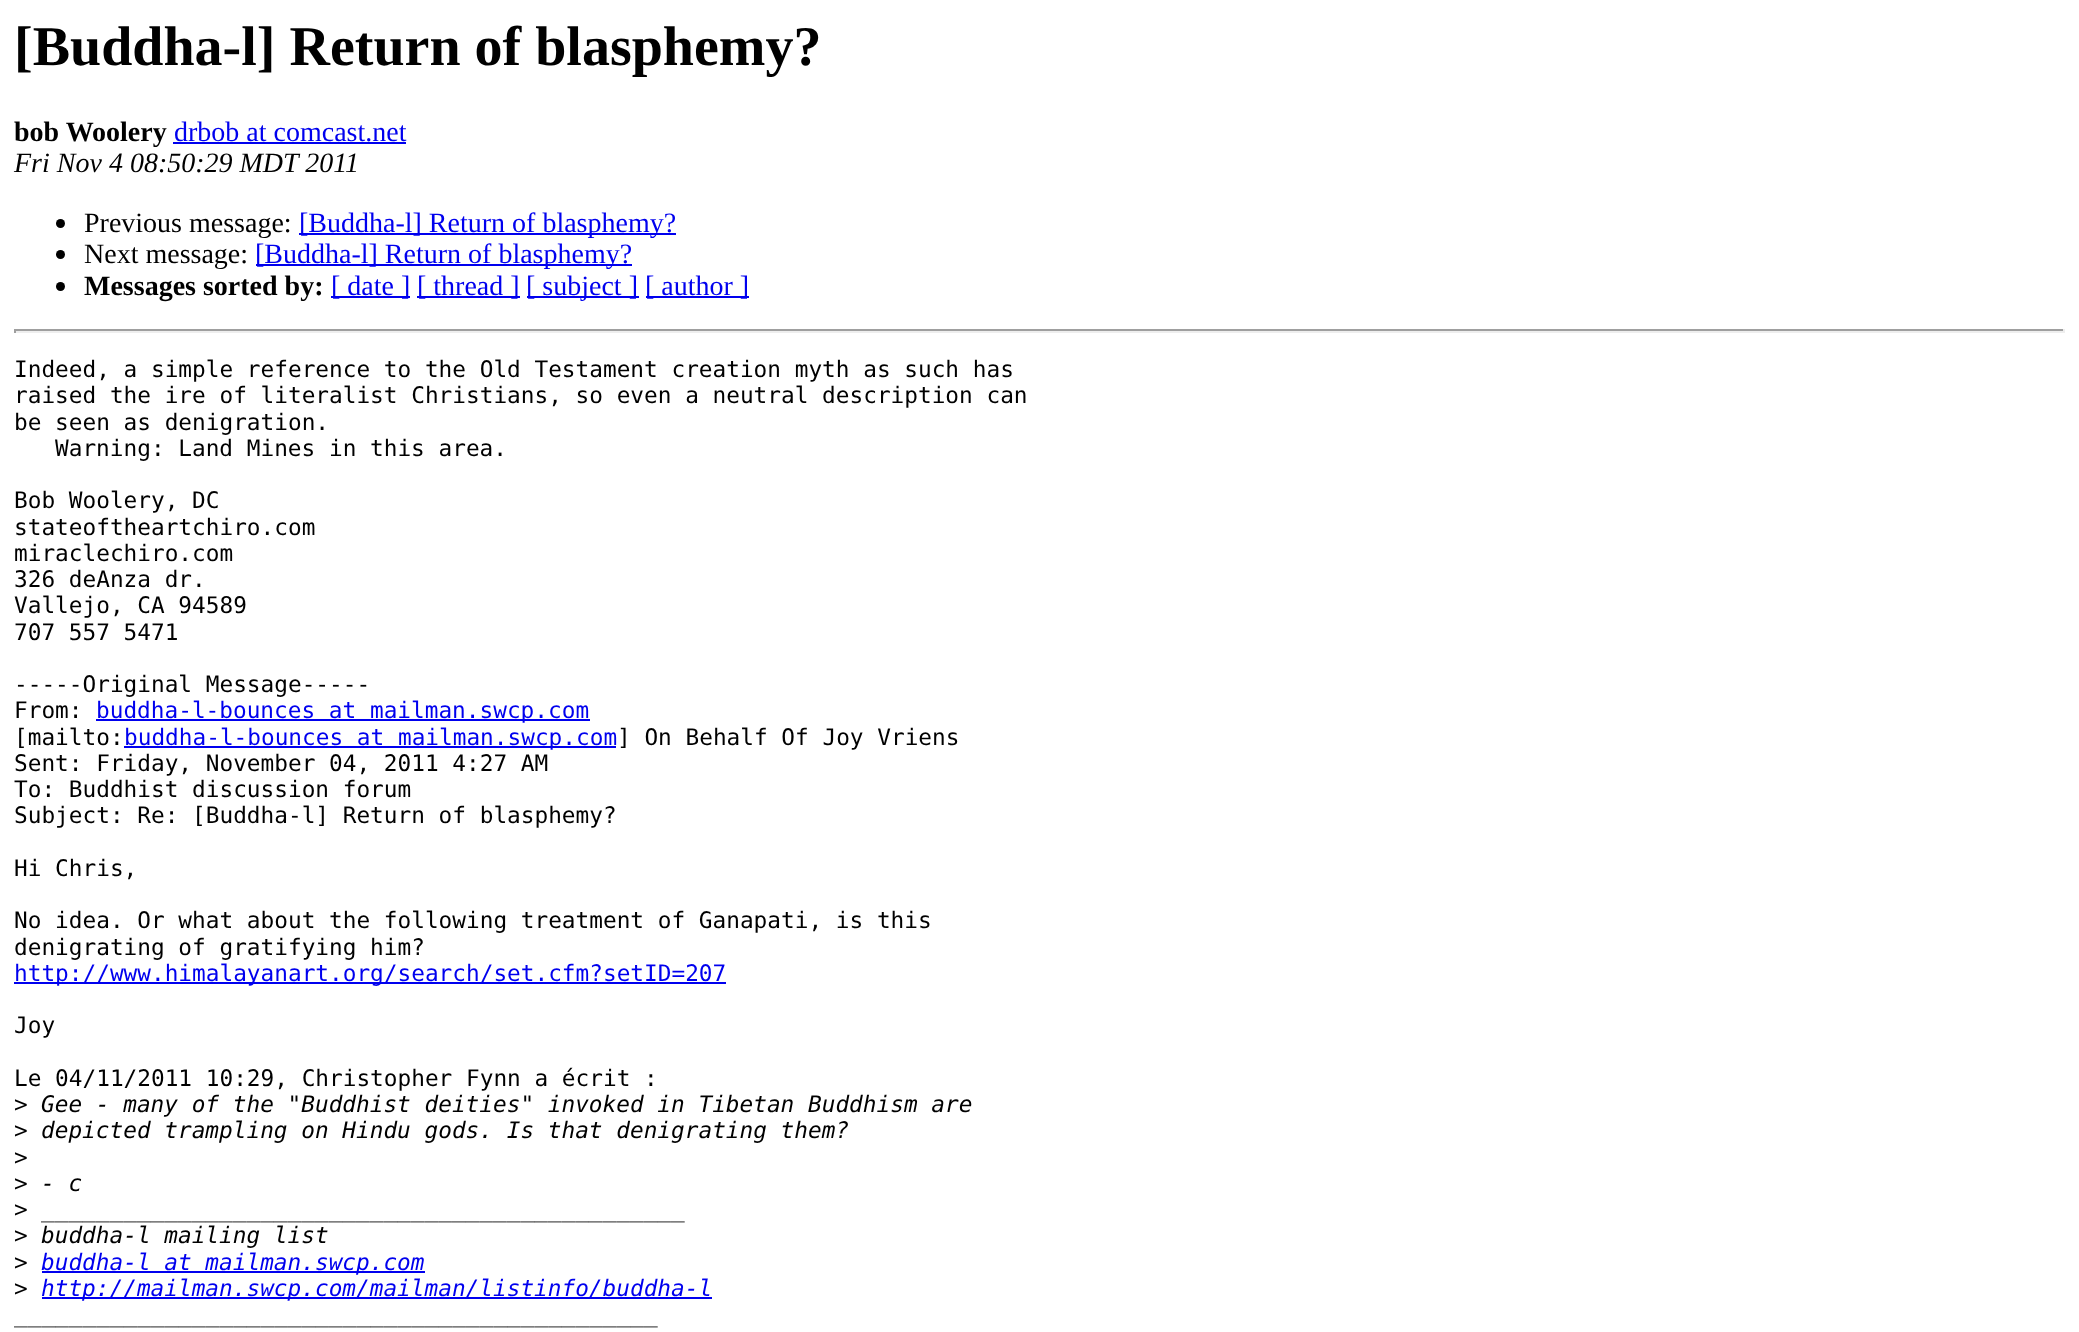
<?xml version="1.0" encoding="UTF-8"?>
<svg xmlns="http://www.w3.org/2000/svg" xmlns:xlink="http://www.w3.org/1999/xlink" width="2079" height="1332">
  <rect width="100%" height="100%" fill="#ffffff" />
  <rect x="173" y="142" width="233" height="2" fill="#0000ee" />
  <circle cx="60.5" cy="223.5" r="4.5" fill="#000000" />
  <rect x="299" y="233" width="377" height="2" fill="#0000ee" />
  <circle cx="60.5" cy="254.5" r="4.5" fill="#000000" />
  <rect x="256" y="264" width="376" height="2" fill="#0000ee" />
  <circle cx="60.5" cy="286.5" r="4.5" fill="#000000" />
  <rect x="331" y="296" width="79" height="2" fill="#0000ee" />
  <rect x="417" y="296" width="103" height="2" fill="#0000ee" />
  <rect x="527" y="296" width="112" height="2" fill="#0000ee" />
  <rect x="646" y="296" width="103" height="2" fill="#0000ee" />
  <rect x="14" y="329" width="2051" height="2" fill="#9f9f9f" />
  <rect x="2063" y="329" width="2" height="4" fill="#eeeeee" />
  <rect x="14" y="331" width="2051" height="2" fill="#eeeeee" />
  <rect x="14" y="329" width="2" height="4" fill="#9f9f9f" />
  <rect x="96" y="719" width="494" height="2" fill="#0000ee" />
  <rect x="124" y="746" width="492" height="2" fill="#0000ee" />
  <rect x="14" y="982" width="712" height="2" fill="#0000ee" />
  <rect x="42" y="1271" width="383" height="2" fill="#0000ee" />
  <rect x="42" y="1297" width="670" height="2" fill="#0000ee" />
  <text x="14" y="65" style="font-family: Liberation Serif; font-size: 56px; font-weight: bold; fill: #000000">[Buddha-l] Return of blasphemy?</text>
  <text x="14" y="141" style="font-family: Liberation Serif; font-size: 28px; font-weight: bold; fill: #000000">bob Woolery</text>
  <text x="174" y="141" style="font-family: Liberation Serif; font-size: 28px; fill: #0000ee">drbob at comcast.net</text>
  <text x="14" y="172" style="font-family: Liberation Serif; font-size: 28px; font-style: italic; fill: #000000">Fri Nov 4 08:50:29 MDT 2011</text>
  <text x="84" y="232" style="font-family: Liberation Serif; font-size: 28px; fill: #000000">Previous message:</text>
  <text x="299" y="232" style="font-family: Liberation Serif; font-size: 28px; fill: #0000ee">[Buddha-l] Return of blasphemy?</text>
  <text x="84" y="263" style="font-family: Liberation Serif; font-size: 28px; fill: #000000">Next message:</text>
  <text x="255" y="263" style="font-family: Liberation Serif; font-size: 28px; fill: #0000ee">[Buddha-l] Return of blasphemy?</text>
  <text x="84" y="295" style="font-family: Liberation Serif; font-size: 28px; font-weight: bold; fill: #000000">Messages sorted by:</text>
  <text x="331" y="295" style="font-family: Liberation Serif; font-size: 28px; fill: #0000ee">[ date ]</text>
  <text x="417" y="295" style="font-family: Liberation Serif; font-size: 28px; fill: #0000ee">[ thread ]</text>
  <text x="526" y="295" style="font-family: Liberation Serif; font-size: 28px; fill: #0000ee">[ subject ]</text>
  <text x="645" y="295" style="font-family: Liberation Serif; font-size: 28px; fill: #0000ee">[ author ]</text>
  <text x="14" y="377" style="font-family: DejaVu Sans Mono; font-size: 22.75px; fill: #000000">Indeed, a simple reference to the Old Testament creation myth as such has</text>
  <text x="14" y="403" style="font-family: DejaVu Sans Mono; font-size: 22.75px; fill: #000000">raised the ire of literalist Christians, so even a neutral description can</text>
  <text x="14" y="430" style="font-family: DejaVu Sans Mono; font-size: 22.75px; fill: #000000">be seen as denigration.</text>
  <text x="55" y="456" style="font-family: DejaVu Sans Mono; font-size: 22.75px; fill: #000000">Warning: Land Mines in this area.</text>
  <text x="14" y="508" style="font-family: DejaVu Sans Mono; font-size: 22.75px; fill: #000000">Bob Woolery, DC</text>
  <text x="14" y="535" style="font-family: DejaVu Sans Mono; font-size: 22.75px; fill: #000000">stateoftheartchiro.com</text>
  <text x="14" y="561" style="font-family: DejaVu Sans Mono; font-size: 22.75px; fill: #000000">miraclechiro.com</text>
  <text x="14" y="587" style="font-family: DejaVu Sans Mono; font-size: 22.75px; fill: #000000">326 deAnza dr.</text>
  <text x="14" y="613" style="font-family: DejaVu Sans Mono; font-size: 22.75px; fill: #000000">Vallejo, CA 94589</text>
  <text x="14" y="640" style="font-family: DejaVu Sans Mono; font-size: 22.75px; fill: #000000">707 557 5471</text>
  <text x="14" y="692" style="font-family: DejaVu Sans Mono; font-size: 22.75px; fill: #000000">-----Original Message-----</text>
  <text x="14" y="718" style="font-family: DejaVu Sans Mono; font-size: 22.75px; fill: #000000">From:</text>
  <text x="96" y="718" style="font-family: DejaVu Sans Mono; font-size: 22.75px; fill: #0000ee">buddha-l-bounces at mailman.swcp.com</text>
  <text x="14" y="745" style="font-family: DejaVu Sans Mono; font-size: 22.75px; fill: #000000">[mailto:</text>
  <text x="124" y="745" style="font-family: DejaVu Sans Mono; font-size: 22.75px; fill: #0000ee">buddha-l-bounces at mailman.swcp.com</text>
  <text x="617" y="745" style="font-family: DejaVu Sans Mono; font-size: 22.75px; fill: #000000">] On Behalf Of Joy Vriens</text>
  <text x="14" y="771" style="font-family: DejaVu Sans Mono; font-size: 22.75px; fill: #000000">Sent: Friday, November 04, 2011 4:27 AM</text>
  <text x="14" y="797" style="font-family: DejaVu Sans Mono; font-size: 22.75px; fill: #000000">To: Buddhist discussion forum</text>
  <text x="14" y="823" style="font-family: DejaVu Sans Mono; font-size: 22.75px; fill: #000000">Subject: Re: [Buddha-l] Return of blasphemy?</text>
  <text x="14" y="876" style="font-family: DejaVu Sans Mono; font-size: 22.75px; fill: #000000">Hi Chris,</text>
  <text x="14" y="928" style="font-family: DejaVu Sans Mono; font-size: 22.75px; fill: #000000">No idea. Or what about the following treatment of Ganapati, is this</text>
  <text x="14" y="955" style="font-family: DejaVu Sans Mono; font-size: 22.75px; fill: #000000">denigrating of gratifying him?</text>
  <text x="14" y="981" style="font-family: DejaVu Sans Mono; font-size: 22.75px; fill: #0000ee">http://www.himalayanart.org/search/set.cfm?setID=207</text>
  <text x="14" y="1033" style="font-family: DejaVu Sans Mono; font-size: 22.75px; fill: #000000">Joy</text>
  <text x="14" y="1086" style="font-family: DejaVu Sans Mono; font-size: 22.75px; fill: #000000">Le 04/11/2011 10:29, Christopher Fynn a écrit :</text>
  <text x="14" y="1112" style="font-family: DejaVu Sans Mono; font-size: 22.75px; fill: #000000">&gt;</text>
  <text x="41" y="1112" style="font-family: DejaVu Sans Mono; font-size: 22.75px; font-style: italic; fill: #000000">Gee - many of the "Buddhist deities" invoked in Tibetan Buddhism are</text>
  <text x="14" y="1138" style="font-family: DejaVu Sans Mono; font-size: 22.75px; fill: #000000">&gt;</text>
  <text x="41" y="1138" style="font-family: DejaVu Sans Mono; font-size: 22.75px; font-style: italic; fill: #000000">depicted trampling on Hindu gods. Is that denigrating them?</text>
  <text x="14" y="1165" style="font-family: DejaVu Sans Mono; font-size: 22.75px; fill: #000000">&gt;</text>
  <text x="14" y="1191" style="font-family: DejaVu Sans Mono; font-size: 22.75px; fill: #000000">&gt;</text>
  <text x="41" y="1191" style="font-family: DejaVu Sans Mono; font-size: 22.75px; font-style: italic; fill: #000000">- c</text>
  <text x="14" y="1217" style="font-family: DejaVu Sans Mono; font-size: 22.75px; fill: #000000">&gt;</text>
  <text x="41" y="1217" style="font-family: DejaVu Sans Mono; font-size: 22.75px; font-style: italic; fill: #000000">_______________________________________________</text>
  <text x="14" y="1243" style="font-family: DejaVu Sans Mono; font-size: 22.75px; fill: #000000">&gt;</text>
  <text x="41" y="1243" style="font-family: DejaVu Sans Mono; font-size: 22.75px; font-style: italic; fill: #000000">buddha-l mailing list</text>
  <text x="14" y="1270" style="font-family: DejaVu Sans Mono; font-size: 22.75px; fill: #000000">&gt;</text>
  <text x="41" y="1270" style="font-family: DejaVu Sans Mono; font-size: 22.75px; font-style: italic; fill: #0000ee">buddha-l at mailman.swcp.com</text>
  <text x="14" y="1296" style="font-family: DejaVu Sans Mono; font-size: 22.75px; fill: #000000">&gt;</text>
  <text x="41" y="1296" style="font-family: DejaVu Sans Mono; font-size: 22.75px; font-style: italic; fill: #0000ee">http://mailman.swcp.com/mailman/listinfo/buddha-l</text>
  <text x="14" y="1322" style="font-family: DejaVu Sans Mono; font-size: 22.75px; fill: #000000">_______________________________________________</text>
</svg>
